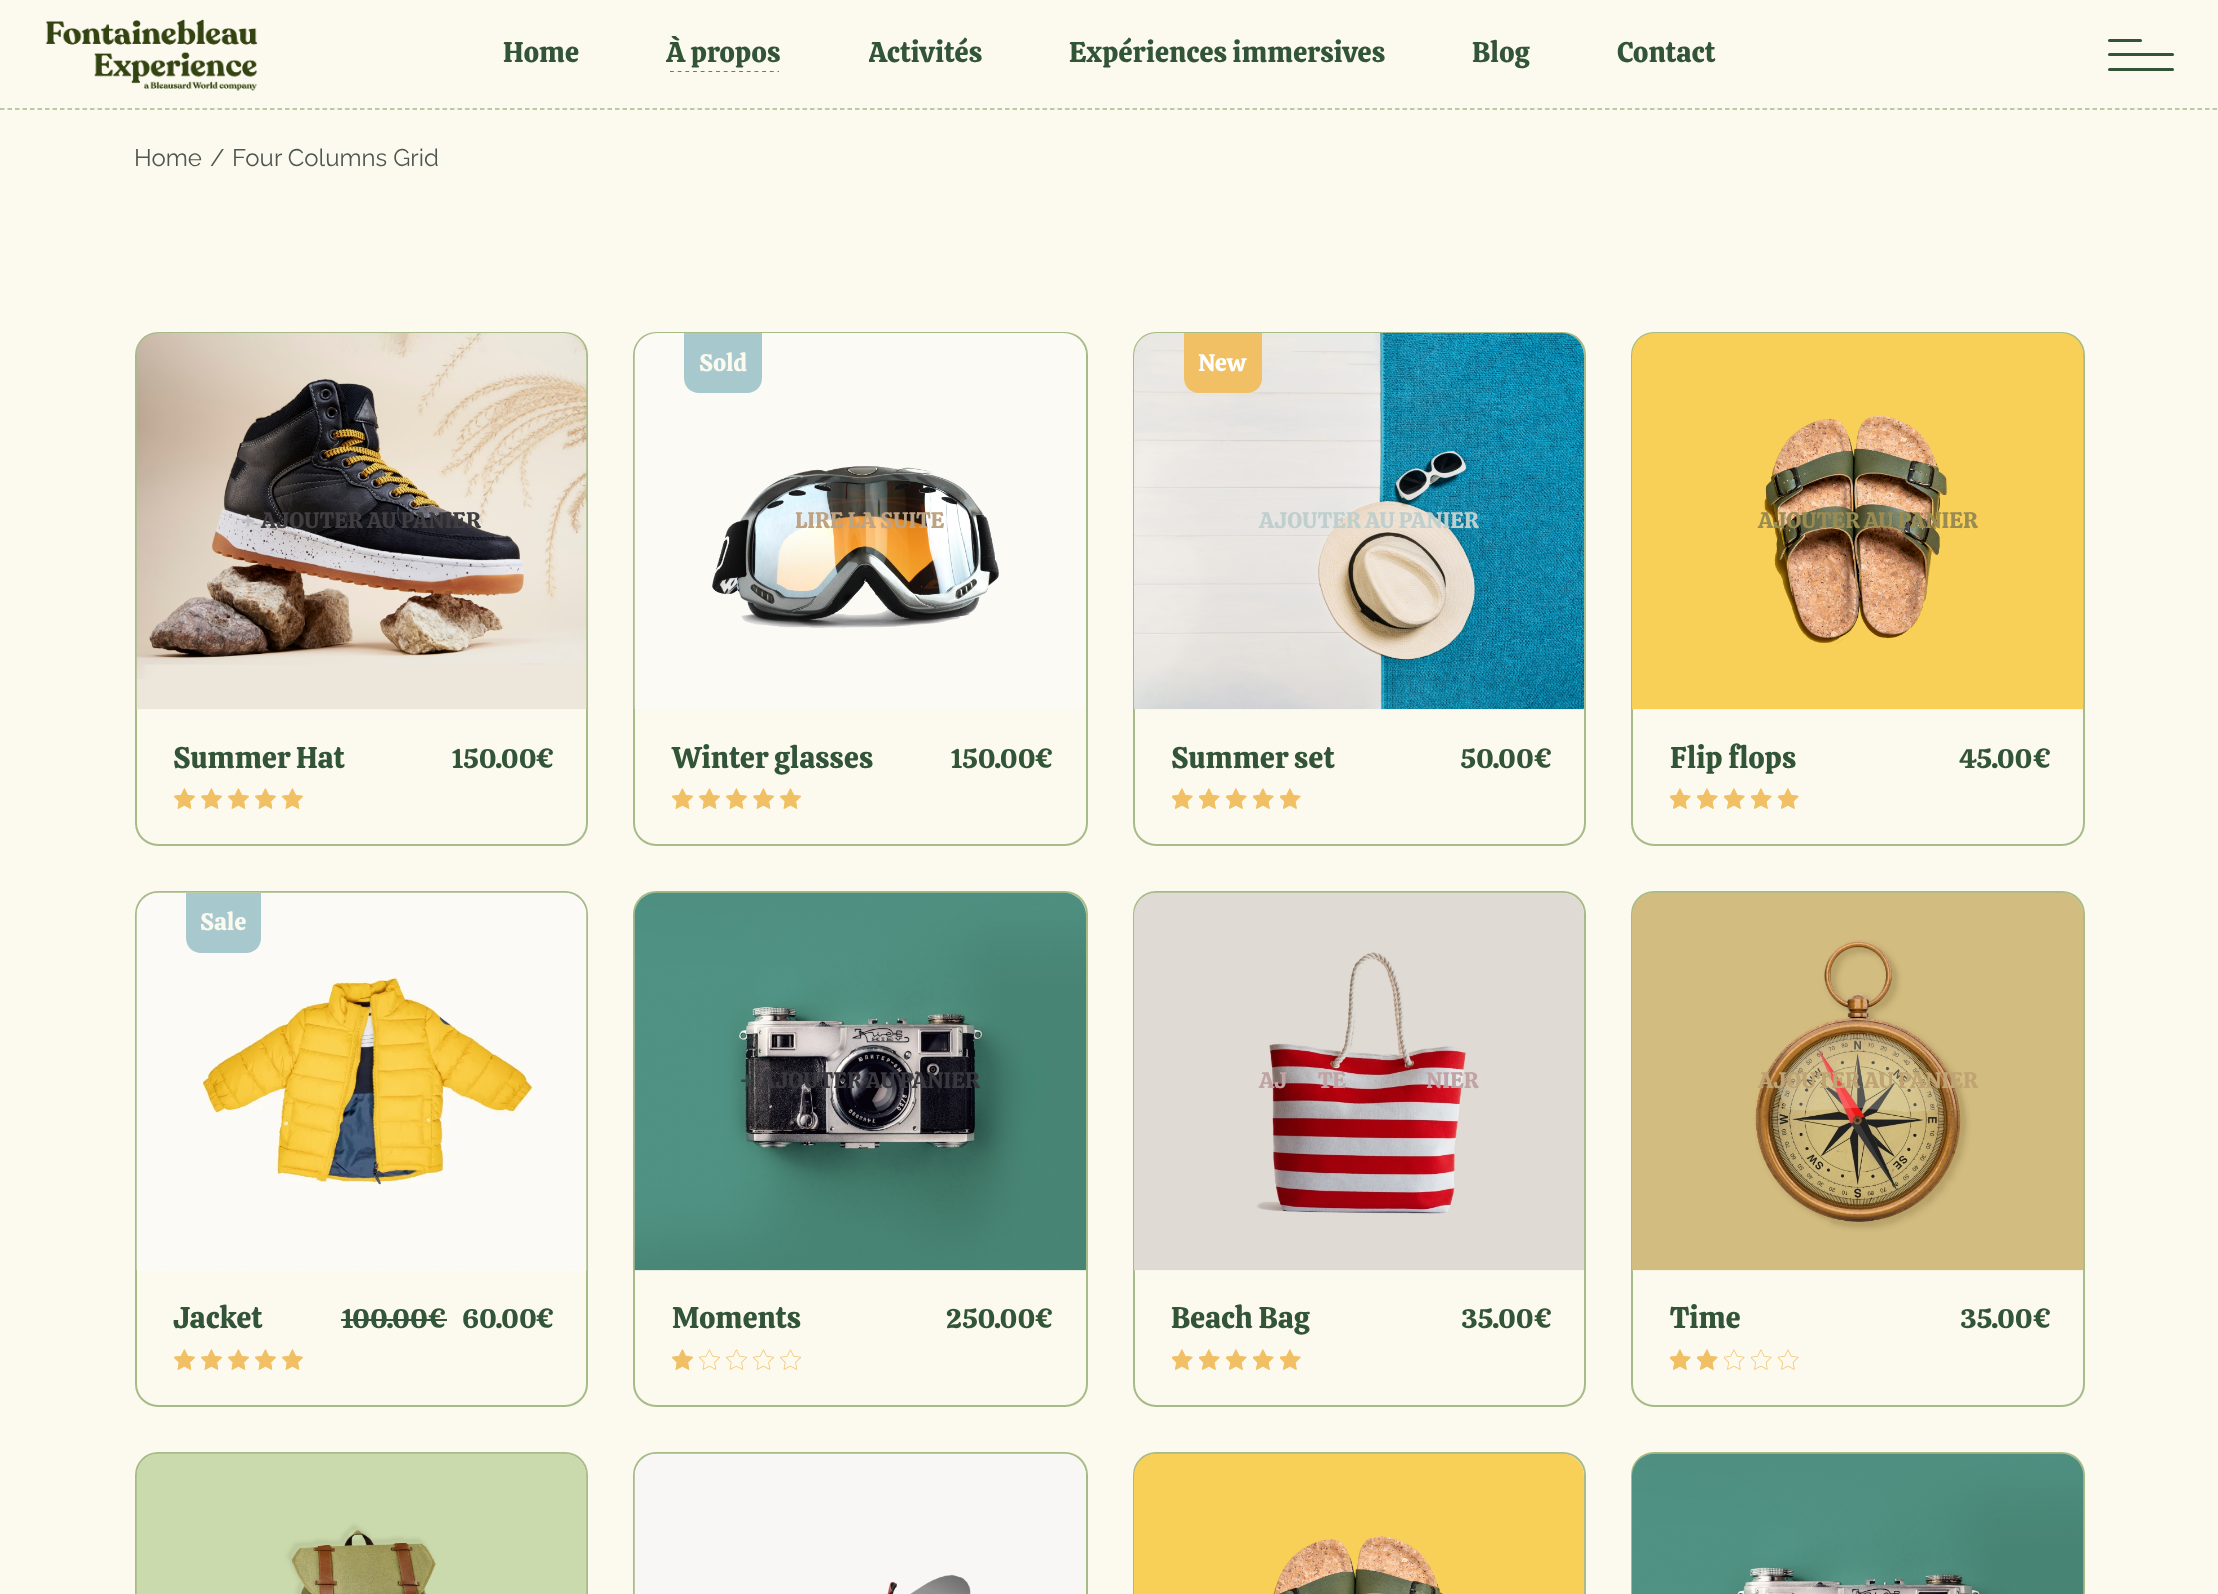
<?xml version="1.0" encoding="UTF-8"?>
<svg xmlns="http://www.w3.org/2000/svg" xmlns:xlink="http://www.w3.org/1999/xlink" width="2218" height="1594">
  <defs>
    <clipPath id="clip1"><rect x="666" y="71" width="116" height="1" /></clipPath>
    <clipPath id="clip2"><rect x="666" y="36" width="116" height="36" /></clipPath>
    <clipPath id="clip3"><rect x="869" y="36" width="114" height="36" /></clipPath>
  </defs>
  <rect width="100%" height="100%" fill="#fcfaee" />
  <path d="M 0 109 h 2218.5" fill="none" stroke="#a7bb89" stroke-width="1.5" stroke-dasharray="4.5 3" />
  <image x="45" y="19" width="213" height="72" xlink:href="image1.png" />
  <g clip-path="url(#clip1)">
    <path d="M 670 71 h 109" fill="none" stroke="#325437" stroke-width="1.5" stroke-dasharray="3.84 3.84" />
  </g>
  <rect x="2108" y="39" width="34" height="3" rx="1.5" fill="#325437" />
  <rect x="2108" y="53" width="66" height="3" rx="1.5" fill="#325437" />
  <rect x="2108" y="68" width="66" height="3" rx="1.5" fill="#325437" />
  <rect x="136" y="333" width="451" height="512" rx="22" fill="none" stroke="#a7bb89" stroke-width="2" />
  <image x="136" y="333" width="451" height="377" xlink:href="image2.png" />
  <image x="174" y="788" width="21" height="21" xlink:href="image3.png" />
  <image x="201" y="788" width="21" height="21" xlink:href="image3.png" />
  <image x="228" y="788" width="21" height="21" xlink:href="image3.png" />
  <image x="255" y="788" width="21" height="21" xlink:href="image3.png" />
  <image x="282" y="788" width="21" height="21" xlink:href="image3.png" />
  <image x="174" y="788" width="21" height="21" xlink:href="image4.png" />
  <image x="201" y="788" width="21" height="21" xlink:href="image4.png" />
  <image x="228" y="788" width="21" height="21" xlink:href="image4.png" />
  <image x="255" y="788" width="21" height="21" xlink:href="image4.png" />
  <image x="282" y="788" width="21" height="21" xlink:href="image4.png" />
  <rect x="634" y="333" width="453" height="512" rx="22" fill="none" stroke="#a7bb89" stroke-width="2" />
  <image x="634" y="333" width="452" height="376" xlink:href="image5.png" />
  <path d="M 684 333 h 78 v 45 c 0 8.5 -6.5 15 -15 15 h -48 c -8.5 0 -15 -6.5 -15 -15 z" fill="#a7c9ce" />
  <image x="672" y="788" width="21" height="21" xlink:href="image3.png" />
  <image x="699" y="788" width="21" height="21" xlink:href="image3.png" />
  <image x="726" y="788" width="21" height="21" xlink:href="image3.png" />
  <image x="753" y="788" width="21" height="21" xlink:href="image3.png" />
  <image x="780" y="788" width="21" height="21" xlink:href="image3.png" />
  <image x="672" y="788" width="21" height="21" xlink:href="image4.png" />
  <image x="699" y="788" width="21" height="21" xlink:href="image4.png" />
  <image x="726" y="788" width="21" height="21" xlink:href="image4.png" />
  <image x="753" y="788" width="21" height="21" xlink:href="image4.png" />
  <image x="780" y="788" width="21" height="21" xlink:href="image4.png" />
  <rect x="1134" y="333" width="451" height="512" rx="22" fill="none" stroke="#a7bb89" stroke-width="2" />
  <image x="1134" y="333" width="450" height="377" xlink:href="image6.png" />
  <path d="M 1184 333 h 78 v 45 c 0 8.5 -6.5 15 -15 15 h -48 c -8.5 0 -15 -6.5 -15 -15 z" fill="#f1c064" />
  <image x="1172" y="788" width="21" height="21" xlink:href="image7.png" />
  <image x="1199" y="788" width="21" height="21" xlink:href="image7.png" />
  <image x="1226" y="788" width="21" height="21" xlink:href="image7.png" />
  <image x="1253" y="788" width="21" height="21" xlink:href="image7.png" />
  <image x="1280" y="788" width="21" height="21" xlink:href="image7.png" />
  <image x="1172" y="788" width="21" height="21" xlink:href="image8.png" />
  <image x="1199" y="788" width="21" height="21" xlink:href="image8.png" />
  <image x="1226" y="788" width="21" height="21" xlink:href="image8.png" />
  <image x="1253" y="788" width="21" height="21" xlink:href="image8.png" />
  <image x="1280" y="788" width="21" height="21" xlink:href="image8.png" />
  <rect x="1632" y="333" width="452" height="512" rx="22" fill="none" stroke="#a7bb89" stroke-width="2" />
  <image x="1632" y="333" width="452" height="377" xlink:href="image9.png" />
  <image x="1670" y="788" width="21" height="21" xlink:href="image7.png" />
  <image x="1697" y="788" width="21" height="21" xlink:href="image7.png" />
  <image x="1724" y="788" width="21" height="21" xlink:href="image7.png" />
  <image x="1751" y="788" width="21" height="21" xlink:href="image7.png" />
  <image x="1778" y="788" width="21" height="21" xlink:href="image7.png" />
  <image x="1670" y="788" width="21" height="21" xlink:href="image8.png" />
  <image x="1697" y="788" width="21" height="21" xlink:href="image8.png" />
  <image x="1724" y="788" width="21" height="21" xlink:href="image8.png" />
  <image x="1751" y="788" width="21" height="21" xlink:href="image8.png" />
  <image x="1778" y="788" width="21" height="21" xlink:href="image8.png" />
  <rect x="136" y="892" width="451" height="514" rx="22" fill="none" stroke="#a7bb89" stroke-width="2" />
  <image x="136" y="892" width="451" height="379" xlink:href="image10.png" />
  <path d="M 186 893 h 75 v 45 c 0 8.5 -6.5 15 -15 15 h -45 c -8.5 0 -15 -6.5 -15 -15 z" fill="#a7c9ce" />
  <rect x="341" y="1319" width="87" height="2" fill="#325437" />
  <rect x="428" y="1319" width="19" height="2" fill="#325437" />
  <image x="174" y="1349" width="21" height="21" xlink:href="image3.png" />
  <image x="201" y="1349" width="21" height="21" xlink:href="image3.png" />
  <image x="228" y="1349" width="21" height="21" xlink:href="image3.png" />
  <image x="255" y="1349" width="21" height="21" xlink:href="image3.png" />
  <image x="282" y="1349" width="21" height="21" xlink:href="image3.png" />
  <image x="174" y="1349" width="21" height="21" xlink:href="image4.png" />
  <image x="201" y="1349" width="21" height="21" xlink:href="image4.png" />
  <image x="228" y="1349" width="21" height="21" xlink:href="image4.png" />
  <image x="255" y="1349" width="21" height="21" xlink:href="image4.png" />
  <image x="282" y="1349" width="21" height="21" xlink:href="image4.png" />
  <rect x="634" y="892" width="453" height="514" rx="22" fill="none" stroke="#a7bb89" stroke-width="2" />
  <image x="634" y="892" width="452" height="379" xlink:href="image11.png" />
  <image x="672" y="1349" width="21" height="21" xlink:href="image3.png" />
  <image x="699" y="1349" width="21" height="21" xlink:href="image3.png" />
  <image x="726" y="1349" width="21" height="21" xlink:href="image3.png" />
  <image x="753" y="1349" width="21" height="21" xlink:href="image3.png" />
  <image x="780" y="1349" width="21" height="21" xlink:href="image3.png" />
  <image x="672" y="1349" width="21" height="21" xlink:href="image4.png" />
  <rect x="1134" y="892" width="451" height="514" rx="22" fill="none" stroke="#a7bb89" stroke-width="2" />
  <image x="1134" y="892" width="450" height="379" xlink:href="image12.png" />
  <image x="1172" y="1349" width="21" height="21" xlink:href="image7.png" />
  <image x="1199" y="1349" width="21" height="21" xlink:href="image7.png" />
  <image x="1226" y="1349" width="21" height="21" xlink:href="image7.png" />
  <image x="1253" y="1349" width="21" height="21" xlink:href="image7.png" />
  <image x="1280" y="1349" width="21" height="21" xlink:href="image7.png" />
  <image x="1172" y="1349" width="21" height="21" xlink:href="image8.png" />
  <image x="1199" y="1349" width="21" height="21" xlink:href="image8.png" />
  <image x="1226" y="1349" width="21" height="21" xlink:href="image8.png" />
  <image x="1253" y="1349" width="21" height="21" xlink:href="image8.png" />
  <image x="1280" y="1349" width="21" height="21" xlink:href="image8.png" />
  <rect x="1632" y="892" width="452" height="514" rx="22" fill="none" stroke="#a7bb89" stroke-width="2" />
  <image x="1632" y="892" width="452" height="379" xlink:href="image13.png" />
  <image x="1670" y="1349" width="21" height="21" xlink:href="image7.png" />
  <image x="1697" y="1349" width="21" height="21" xlink:href="image7.png" />
  <image x="1724" y="1349" width="21" height="21" xlink:href="image7.png" />
  <image x="1751" y="1349" width="21" height="21" xlink:href="image7.png" />
  <image x="1778" y="1349" width="21" height="21" xlink:href="image7.png" />
  <image x="1670" y="1349" width="21" height="21" xlink:href="image8.png" />
  <image x="1697" y="1349" width="21" height="21" xlink:href="image8.png" />
  <rect x="136" y="1453" width="451" height="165" rx="22" fill="none" stroke="#a7bb89" stroke-width="2" />
  <image x="136" y="1453" width="451" height="141" xlink:href="image14.png" />
  <rect x="634" y="1453" width="453" height="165" rx="22" fill="none" stroke="#a7bb89" stroke-width="2" />
  <image x="634" y="1453" width="452" height="141" xlink:href="image15.png" />
  <rect x="1134" y="1453" width="451" height="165" rx="22" fill="none" stroke="#a7bb89" stroke-width="2" />
  <image x="1134" y="1453" width="450" height="141" xlink:href="image16.png" />
  <rect x="1632" y="1453" width="452" height="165" rx="22" fill="none" stroke="#a7bb89" stroke-width="2" />
  <image x="1632" y="1453" width="452" height="141" xlink:href="image17.png" />
  <text x="503" y="62" style="font-family: Calistoga; font-size: 28.5px; fill: #325437">Home</text>
  <g clip-path="url(#clip2)">
    <text x="666" y="62" style="font-family: Calistoga; font-size: 28.5px; fill: #325437">À propos</text>
  </g>
  <g clip-path="url(#clip3)">
    <text x="868" y="62" style="font-family: Calistoga; font-size: 28.5px; fill: #325437">Activités</text>
  </g>
  <text x="1069" y="62" style="font-family: Calistoga; font-size: 28.5px; fill: #325437">Expériences immersives</text>
  <text x="1472" y="62" style="font-family: Calistoga; font-size: 28.5px; fill: #325437">Blog</text>
  <text x="1617" y="62" style="font-family: Calistoga; font-size: 28.5px; fill: #325437">Contact</text>
  <text x="134" y="166" style="font-family: Raleway; font-size: 24px; fill: #4e5651">Home</text>
  <text x="210" y="166" style="font-family: Raleway; font-size: 24px; fill: #4e5651">/</text>
  <text x="232" y="166" style="font-family: Raleway; font-size: 24px; fill: #4e5651">Four Columns Grid</text>
  <text x="241" y="528" style="font-family: Calistoga; font-size: 22.5px; fill: #bebcbf">+</text>
  <text x="261" y="528" style="font-family: Calistoga; font-size: 22.5px; fill: #403e41">AJOUTER AU PANIER</text>
  <text x="173" y="768" style="font-family: Calistoga; font-size: 30px; fill: #325437">Summer Hat</text>
  <text x="451" y="768" style="font-family: Calistoga; font-size: 27px; fill: #325437">150.00</text>
  <text x="535" y="768" style="font-family: Calistoga; font-size: 27px; fill: #325437">€</text>
  <text x="699" y="371" style="font-family: Calistoga; font-size: 24px; fill: #fcfaee">Sold</text>
  <text x="795" y="528" style="font-family: Calistoga; font-size: 22.5px; fill: #bea382">LIRE LA SUITE</text>
  <text x="672" y="768" style="font-family: Calistoga; font-size: 30px; fill: #325437">Winter glasses</text>
  <text x="950" y="768" style="font-family: Calistoga; font-size: 27px; fill: #325437">150.00</text>
  <text x="1034" y="768" style="font-family: Calistoga; font-size: 27px; fill: #325437">€</text>
  <text x="1198" y="371" style="font-family: Calistoga; font-size: 24px; fill: #ffffff">New</text>
  <text x="1259" y="528" style="font-family: Calistoga; font-size: 22.5px; fill: #bfcfce">AJOUTER AU PANIER</text>
  <text x="1171" y="768" style="font-family: Calistoga; font-size: 30px; fill: #325437">Summer set</text>
  <text x="1460" y="768" style="font-family: Calistoga; font-size: 27px; fill: #325437">50.00</text>
  <text x="1533" y="768" style="font-family: Calistoga; font-size: 27px; fill: #325437">€</text>
  <text x="1758" y="528" style="font-family: Calistoga; font-size: 22.5px; fill: #9a8b53">AJOUTER AU PANIER</text>
  <text x="1670" y="768" style="font-family: Calistoga; font-size: 30px; fill: #325437">Flip flops</text>
  <text x="1959" y="768" style="font-family: Calistoga; font-size: 27px; fill: #325437">45.00</text>
  <text x="2032" y="768" style="font-family: Calistoga; font-size: 27px; fill: #325437">€</text>
  <text x="200" y="930" style="font-family: Calistoga; font-size: 24px; fill: #fcfaee">Sale</text>
  <text x="173" y="1328" style="font-family: Calistoga; font-size: 30px; fill: #325437">Jacket</text>
  <text x="341" y="1328" style="font-family: Calistoga; font-size: 27px; fill: #325437">100.00</text>
  <text x="427" y="1328" style="font-family: Calistoga; font-size: 27px; fill: #325437">€</text>
  <text x="462" y="1328" style="font-family: Calistoga; font-size: 27px; fill: #325437">60.00</text>
  <text x="535" y="1328" style="font-family: Calistoga; font-size: 27px; fill: #325437">€</text>
  <text x="740" y="1088" style="font-family: Calistoga; font-size: 22.5px; fill: #314645">+</text>
  <text x="760" y="1088" style="font-family: Calistoga; font-size: 22.5px; fill: #39383e">AJOUTER AU PANIER</text>
  <text x="672" y="1328" style="font-family: Calistoga; font-size: 30px; fill: #325437">Moments</text>
  <text x="946" y="1328" style="font-family: Calistoga; font-size: 27px; fill: #325437">250.00</text>
  <text x="1034" y="1328" style="font-family: Calistoga; font-size: 27px; fill: #325437">€</text>
  <text x="1259" y="1088" style="font-family: Calistoga; font-size: 22.5px; fill: #c0a3a5">AJ</text>
  <text x="1318" y="1088" style="font-family: Calistoga; font-size: 22.5px; fill: #c0a3a5">TE</text>
  <text x="1426" y="1088" style="font-family: Calistoga; font-size: 22.5px; fill: #c0a3a5">NIER</text>
  <text x="1171" y="1328" style="font-family: Calistoga; font-size: 30px; fill: #325437">Beach Bag</text>
  <text x="1461" y="1328" style="font-family: Calistoga; font-size: 27px; fill: #325437">35.00</text>
  <text x="1533" y="1328" style="font-family: Calistoga; font-size: 27px; fill: #325437">€</text>
  <text x="1758" y="1088" style="font-family: Calistoga; font-size: 22.5px; fill: #bfa373">AJOUTER AU PANIER</text>
  <text x="1670" y="1328" style="font-family: Calistoga; font-size: 30px; fill: #325437">Time</text>
  <text x="1960" y="1328" style="font-family: Calistoga; font-size: 27px; fill: #325437">35.00</text>
  <text x="2032" y="1328" style="font-family: Calistoga; font-size: 27px; fill: #325437">€</text>
</svg>
